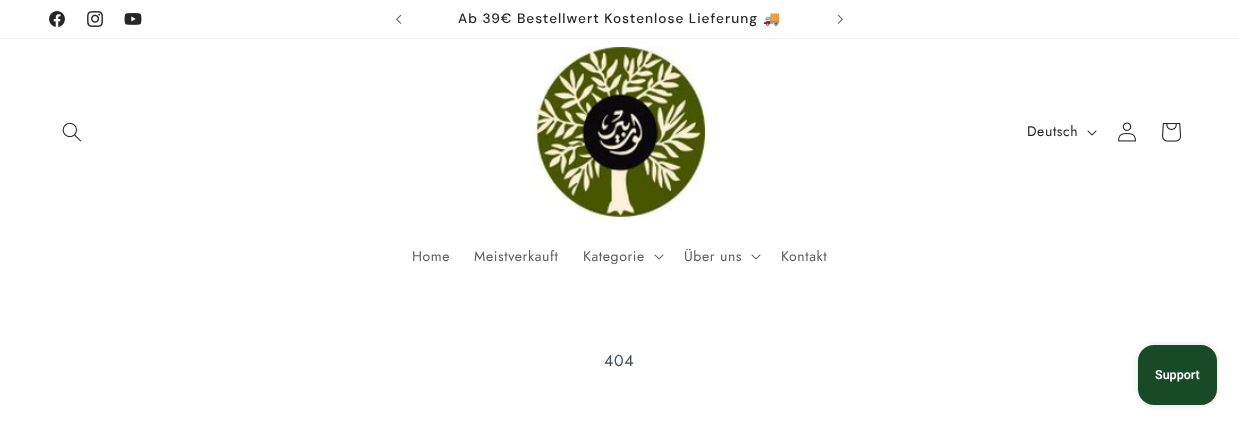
<?xml version="1.0" encoding="UTF-8"?>
<svg xmlns="http://www.w3.org/2000/svg" xmlns:xlink="http://www.w3.org/1999/xlink" width="1239" height="426">
  <rect width="100%" height="100%" fill="#ffffff" />
  <rect y="38" width="1239" height="1" fill="#eeeeee" />
  <image x="49" y="11" width="16" height="16" xlink:href="image1.png" />
  <image x="87" y="11" width="16" height="16" xlink:href="image2.png" />
  <image x="124" y="13" width="18" height="12" xlink:href="image3.png" />
  <image x="396" y="14" width="6" height="10" xlink:href="image4.png" />
  <image x="837" y="14" width="6" height="10" xlink:href="image5.png" />
  <image x="62" y="122" width="19" height="20" xlink:href="image6.png" />
  <image x="535" y="47" width="170" height="170" xlink:href="image7.png" />
  <image x="1087" y="130" width="10" height="6" xlink:href="image8.png" />
  <image x="1118" y="122" width="18" height="20" xlink:href="image9.png" />
  <image x="1162" y="123" width="20" height="19" xlink:href="image10.png" />
  <image x="654" y="254" width="10" height="6" xlink:href="image11.png" />
  <image x="751" y="254" width="10" height="6" xlink:href="image11.png" />
  <rect x="1138" y="345" width="79" height="60" rx="16" fill="#000000" fill-opacity="0.15" filter="blur(2.5px)" />
  <rect x="1138" y="345" width="79" height="60" rx="16" fill="#194a28" />
  <text x="458" y="23" style="font-family: DM Sans; font-size: 13.65px; font-weight: 500; letter-spacing: 1px; fill: #262626">Ab 39€ Bestellwert Kostenlose Lieferung</text>
  <text x="763" y="23" style="font-family: Noto Color Emoji; font-size: 13.65px; letter-spacing: 1px; fill: #262626">🚚</text>
  <text x="1027" y="136" style="font-family: Jost; font-size: 14px; letter-spacing: 0.6px; fill: #262626">Deutsch</text>
  <text x="412" y="261" style="font-family: Jost; font-size: 14px; letter-spacing: 0.6px; fill: #5c5c5c">Home</text>
  <text x="474" y="261" style="font-family: Jost; font-size: 14px; letter-spacing: 0.6px; fill: #5c5c5c">Meistverkauft</text>
  <text x="583" y="261" style="font-family: Jost; font-size: 14px; letter-spacing: 0.6px; fill: #5c5c5c">Kategorie</text>
  <text x="684" y="261" style="font-family: Jost; font-size: 14px; letter-spacing: 0.6px; fill: #5c5c5c">Über uns</text>
  <text x="781" y="261" style="font-family: Jost; font-size: 14px; letter-spacing: 0.6px; fill: #5c5c5c">Kontakt</text>
  <text x="604" y="366" style="font-family: Jost; font-size: 16px; letter-spacing: 0.6px; fill: #404d5e">404</text>
  <text x="1155" y="379" style="font-family: Roboto; font-size: 12.5px; font-weight: 600; fill: #ffffff">Support</text>
</svg>
